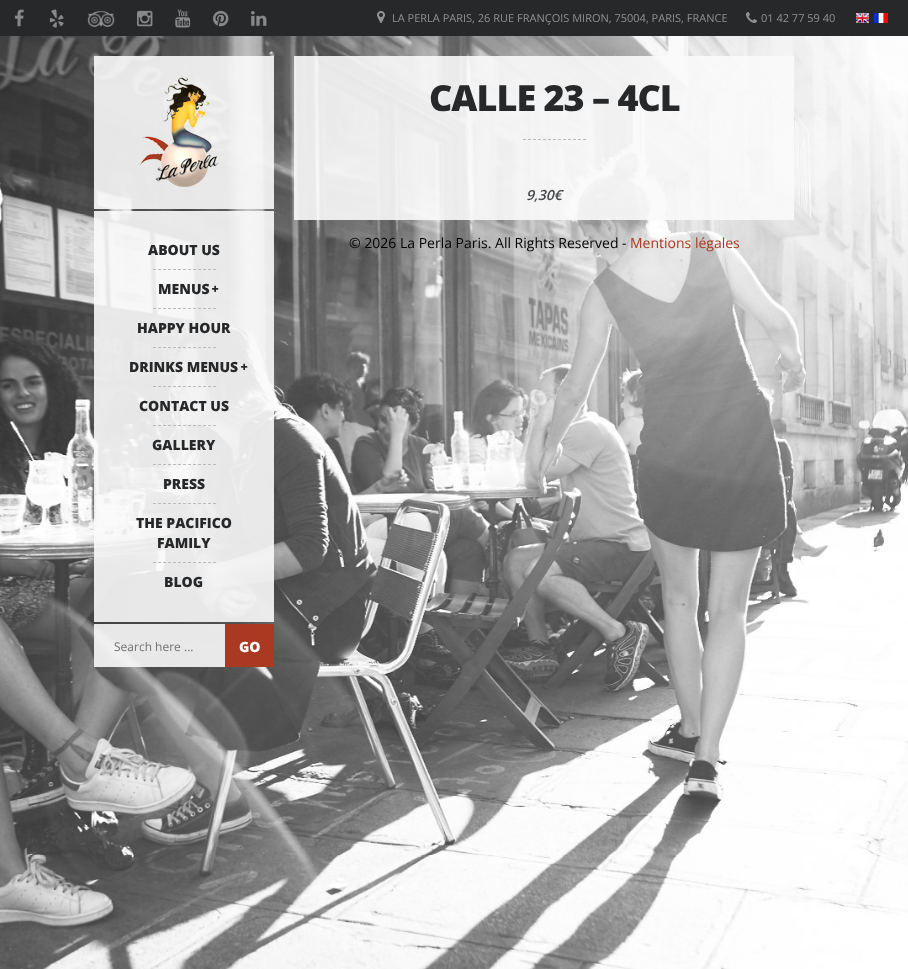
<?xml version="1.0" encoding="UTF-8"?>
<svg xmlns="http://www.w3.org/2000/svg" xmlns:xlink="http://www.w3.org/1999/xlink" width="908" height="969">
  <rect width="100%" height="100%" fill="#ffffff" />
  <rect width="908" height="36" fill="#26282a" />
  <image x="14" y="9" width="10" height="18" xlink:href="image1.png" />
  <image x="49" y="9" width="15" height="19" xlink:href="image2.png" />
  <image x="87" y="11" width="28" height="16" xlink:href="image3.png" />
  <image x="137" y="10" width="16" height="17" xlink:href="image4.png" />
  <image x="175" y="9" width="16" height="19" xlink:href="image5.png" />
  <image x="213" y="10" width="16" height="17" xlink:href="image6.png" />
  <image x="251" y="11" width="16" height="15" xlink:href="image7.png" />
  <image x="377" y="11" width="8" height="12" xlink:href="image8.png" />
  <image x="746" y="12" width="11" height="11" xlink:href="image9.png" />
  <image x="856" y="13" width="13" height="10" xlink:href="image10.png" />
  <image x="874" y="13" width="14" height="10" xlink:href="image11.png" />
  <image x="0" y="36" width="908" height="933" xlink:href="image12.png" />
  <rect x="294" y="56" width="500" height="164" fill="#f9f9f9" fill-opacity="0.9" />
  <path d="M 523 139.5 h 63" fill="none" stroke="#bbbbbb" stroke-dasharray="3 2" />
  <rect x="94" y="56" width="180" height="153" fill="#f9f9f9" fill-opacity="0.9" />
  <image x="139" y="77" width="80" height="110" xlink:href="image13.png" />
  <rect x="94" y="211" width="180" height="411" fill="#f9f9f9" fill-opacity="0.9" />
  <path d="M 153 269.5 h 63" fill="none" stroke="#bbbbbb" stroke-dasharray="3 2" />
  <image x="212" y="285" width="7" height="7" xlink:href="image14.png" />
  <path d="M 153 308.5 h 63" fill="none" stroke="#bbbbbb" stroke-dasharray="3 2" />
  <path d="M 153 347.5 h 63" fill="none" stroke="#bbbbbb" stroke-dasharray="3 2" />
  <image x="241" y="363" width="7" height="7" xlink:href="image15.png" />
  <path d="M 153 386.5 h 63" fill="none" stroke="#bbbbbb" stroke-dasharray="3 2" />
  <path d="M 153 425.5 h 63" fill="none" stroke="#bbbbbb" stroke-dasharray="3 2" />
  <path d="M 153 464.5 h 63" fill="none" stroke="#bbbbbb" stroke-dasharray="3 2" />
  <path d="M 153 503.5 h 63" fill="none" stroke="#bbbbbb" stroke-dasharray="3 2" />
  <path d="M 153 562.5 h 63" fill="none" stroke="#bbbbbb" stroke-dasharray="3 2" />
  <rect x="94" y="624" width="131" height="43" fill="#f9f9f9" fill-opacity="0.9" />
  <rect x="225" y="624" width="49" height="43" fill="#a93920" />
  <text x="392" y="22" style="font-family: Open Sans; font-size: 11px; fill: #909294">LA PERLA PARIS, 26 RUE FRANÇOIS MIRON, 75004, PARIS, FRANCE</text>
  <text x="761" y="22" style="font-family: Open Sans; font-size: 11px; fill: #909294">01 42 77 59 40</text>
  <text x="429" y="111" style="font-family: Open Sans; font-size: 36px; font-weight: 800; letter-spacing: -1px; fill: #26282a">CALLE 23 – 4CL</text>
  <text x="526" y="200" style="font-family: Open Sans; font-size: 14px; font-weight: 600; font-style: italic; fill: #444648">9,30€</text>
  <text x="349" y="248" style="font-family: Open Sans; font-size: 14px; fill: #000000">© 2026 La Perla Paris. All Rights Reserved -</text>
  <text x="630" y="248" style="font-family: Open Sans; font-size: 14px; fill: #a93920">Mentions légales</text>
  <text x="148" y="255" style="font-family: Open Sans; font-size: 14px; font-weight: 800; fill: #26282a">ABOUT US</text>
  <text x="158" y="294" style="font-family: Open Sans; font-size: 14px; font-weight: 800; fill: #26282a">MENUS</text>
  <text x="137" y="333" style="font-family: Open Sans; font-size: 14px; font-weight: 800; fill: #26282a">HAPPY HOUR</text>
  <text x="129" y="372" style="font-family: Open Sans; font-size: 14px; font-weight: 800; fill: #26282a">DRINKS MENUS</text>
  <text x="139" y="411" style="font-family: Open Sans; font-size: 14px; font-weight: 800; fill: #26282a">CONTACT US</text>
  <text x="152" y="450" style="font-family: Open Sans; font-size: 14px; font-weight: 800; fill: #26282a">GALLERY</text>
  <text x="163" y="489" style="font-family: Open Sans; font-size: 14px; font-weight: 800; fill: #26282a">PRESS</text>
  <text x="136" y="528" style="font-family: Open Sans; font-size: 14px; font-weight: 800; fill: #26282a">THE PACIFICO</text>
  <text x="157" y="548" style="font-family: Open Sans; font-size: 14px; font-weight: 800; fill: #26282a">FAMILY</text>
  <text x="164" y="587" style="font-family: Open Sans; font-size: 14px; font-weight: 800; fill: #26282a">BLOG</text>
  <text x="114" y="651" style="font-family: Open Sans; font-size: 12px; fill: #707274">Search here ...</text>
  <text x="239" y="652" style="font-family: Open Sans; font-size: 14px; font-weight: 800; fill: #ffffff">GO</text>
</svg>
